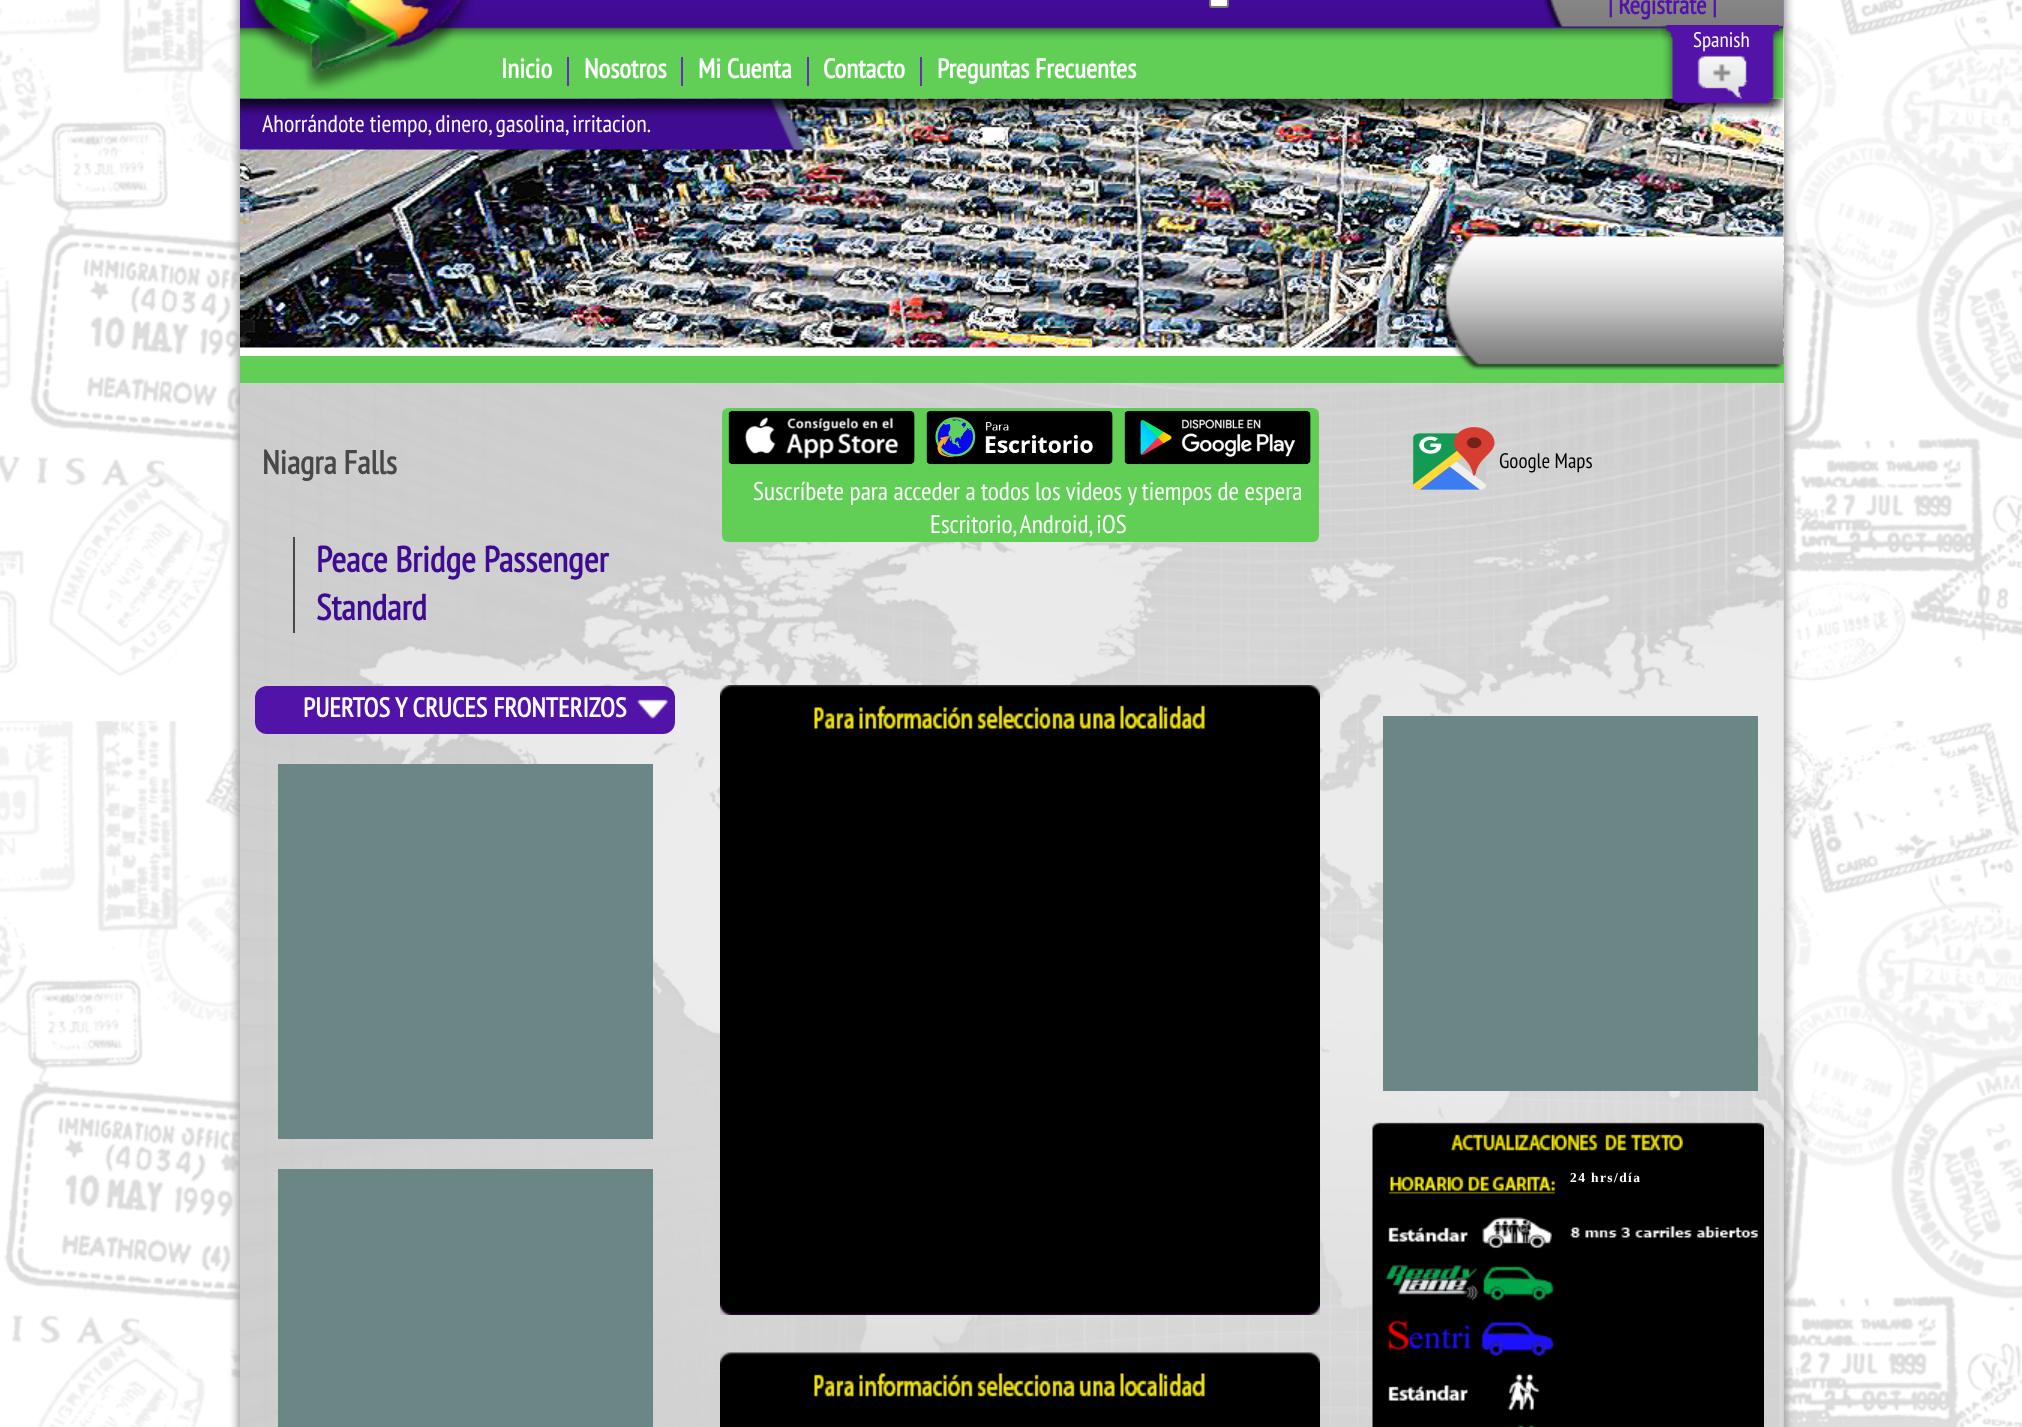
<?xml version="1.0" encoding="UTF-8"?>
<svg xmlns="http://www.w3.org/2000/svg" xmlns:xlink="http://www.w3.org/1999/xlink" width="2022" height="1427">
  <rect width="100%" height="100%" fill="#ffffff" />
  <image x="0" y="0" width="2022" height="1427" xlink:href="image1.png" />
  <rect x="237" y="-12" width="1550" height="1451" fill="#a1a1a1" filter="blur(4px)" />
  <rect x="240" width="1544" height="356" fill="#ffffff" />
  <rect x="240" y="356" width="1544" height="27" fill="#61cf56" />
  <image x="240" y="98" width="1544" height="250" xlink:href="image7.png" />
  <image x="240" y="98" width="565" height="52" xlink:href="image9.png" />
  <image x="1438" y="236" width="346" height="134" xlink:href="image10.png" />
  <rect x="1783" y="383" width="1" height="1044" fill="#d0d0d0" />
  <image x="240" y="383" width="1544" height="1044" xlink:href="image11.png" />
  <rect x="293" y="537" width="2" height="96" fill="#494848" />
  <image x="1412" y="427" width="83" height="63" xlink:href="image12.png" />
  <rect x="722" y="408" width="597" height="134" rx="6" fill="#61cf56" />
  <image x="728" y="410" width="187" height="55" xlink:href="image13.png" />
  <image x="926" y="410" width="187" height="55" xlink:href="image14.png" />
  <image x="1124" y="410" width="187" height="55" xlink:href="image15.png" />
  <rect x="255" y="686" width="420" height="48" rx="12" fill="#5213a9" />
  <image x="637" y="699" width="31" height="20" xlink:href="image16.png" />
  <rect x="278" y="764" width="375" height="375" fill="#6a8785" />
  <rect x="278" y="1169" width="375" height="258" fill="#6a8785" />
  <image x="720" y="685" width="600" height="630" xlink:href="image17.png" />
  <image x="720" y="1352" width="600" height="75" xlink:href="image18.png" />
  <rect x="1383" y="716" width="375" height="375" fill="#6a8785" />
  <image x="1372" y="1122" width="392" height="305" xlink:href="image19.png" />
  <image x="1570" y="1226" width="188" height="12" xlink:href="image20.png" />
  <text x="262" y="132" style="font-family: PT Sans Narrow; font-size: 24px; fill: #ffffff">Ahorrándote tiempo, dinero, gasolina, irritacion.</text>
  <image x="240" y="98" width="1544" height="19" xlink:href="image8.png" />
  <image x="240" y="0" width="1544" height="99" xlink:href="image2.png" />
  <text x="937" y="78" style="font-family: PT Sans Narrow; font-size: 27px; font-weight: bold; fill: #ffffff">Preguntas Frecuentes</text>
  <text x="823" y="78" style="font-family: PT Sans Narrow; font-size: 27px; font-weight: bold; fill: #ffffff">Contacto</text>
  <rect x="920" y="57" width="2" height="29" fill="#662cbd" />
  <text x="698" y="78" style="font-family: PT Sans Narrow; font-size: 27px; font-weight: bold; fill: #ffffff">Mi Cuenta</text>
  <rect x="807" y="57" width="2" height="29" fill="#662cbd" />
  <text x="584" y="78" style="font-family: PT Sans Narrow; font-size: 27px; font-weight: bold; fill: #ffffff">Nosotros</text>
  <rect x="681" y="57" width="2" height="29" fill="#662cbd" />
  <text x="501" y="78" style="font-family: PT Sans Narrow; font-size: 27px; font-weight: bold; fill: #ffffff">Inicio</text>
  <rect x="567" y="57" width="2" height="29" fill="#662cbd" />
  <image x="1543" y="0" width="241" height="27" xlink:href="image4.png" />
  <image x="1661" y="25" width="123" height="83" xlink:href="image5.png" />
  <image x="1713" y="64" width="18" height="18" xlink:href="image6.png" />
  <rect x="1210" y="-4" width="18" height="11" rx="2" fill="#ffffff" stroke="#767676" stroke-width="2" />
  <text x="1608" y="14" style="font-family: PT Sans Narrow; font-size: 25.5px; font-weight: bold; fill: #5313a9">| Regístrate |</text>
  <text x="1693" y="47" style="font-family: PT Sans Narrow; font-size: 21px; fill: #ffffff">Spanish</text>
  <image x="246" y="0" width="229" height="91" xlink:href="image3.png" />
  <text x="262" y="474" style="font-family: PT Sans Narrow; font-size: 33px; font-weight: bold; fill: #494848">Niagra Falls</text>
  <text x="316" y="572" style="font-family: PT Sans Narrow; font-size: 36px; font-weight: bold; fill: #3f0b90">Peace Bridge Passenger</text>
  <text x="316" y="620" style="font-family: PT Sans Narrow; font-size: 36px; font-weight: bold; fill: #3f0b90">Standard</text>
  <text x="1499" y="468" style="font-family: PT Sans Narrow; font-size: 21px; fill: #000000">Google Maps</text>
  <text x="753" y="500" style="font-family: PT Sans Narrow; font-size: 25.5px; fill: #ffffff">Suscríbete para acceder a todos los videos y tiempos de espera</text>
  <text x="930" y="533" style="font-family: PT Sans Narrow; font-size: 25.5px; fill: #ffffff">Escritorio, Android, iOS</text>
  <text x="303" y="717" style="font-family: PT Sans Narrow; font-size: 27px; font-weight: bold; fill: #ffffff">PUERTOS Y CRUCES FRONTERIZOS</text>
  <text x="1570" y="1182" style="font-family: Liberation Serif; font-size: 13.5px; font-weight: bold; letter-spacing: 1.4px; fill: #ffffff">24 hrs/día</text>
</svg>
